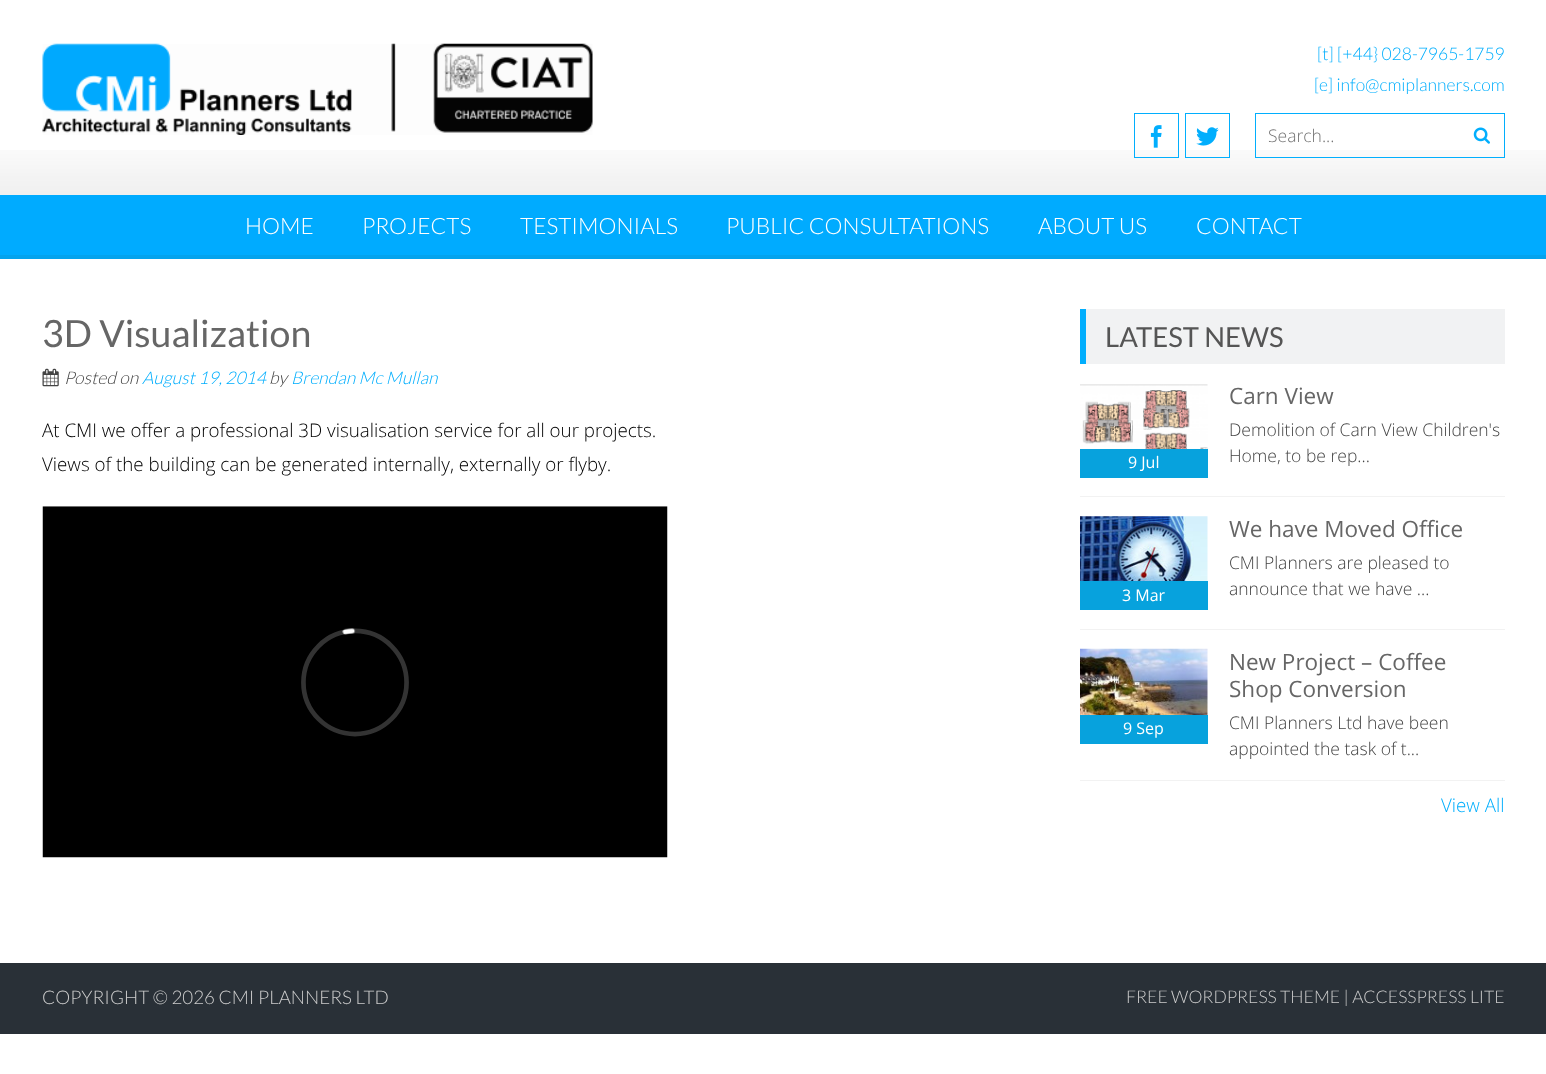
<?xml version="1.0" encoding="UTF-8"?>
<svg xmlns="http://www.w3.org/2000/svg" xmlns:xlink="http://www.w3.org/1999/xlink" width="1546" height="1074">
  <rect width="100%" height="100%" fill="#ffffff" />
  <image x="0" y="150" width="1546" height="45" xlink:href="image1.png" />
  <image x="42" y="43" width="551" height="92" xlink:href="image2.png" />
  <rect x="1134.5" y="113.5" width="44" height="44" fill="none" stroke="#01aefd" />
  <image x="1150" y="125" width="12" height="23" xlink:href="image3.png" />
  <rect x="1185.5" y="113.5" width="44" height="44" fill="none" stroke="#01aefd" />
  <image x="1196" y="127" width="23" height="19" xlink:href="image4.png" />
  <rect x="1255.5" y="113.5" width="249" height="44" fill="none" stroke="#01aefd" />
  <image x="1473" y="127" width="17" height="17" xlink:href="image5.png" />
  <rect y="195" width="1546" height="60" fill="#00abff" />
  <rect y="255" width="1546" height="4" fill="#04a3ed" />
  <image x="42" y="368" width="17" height="19" xlink:href="image6.png" />
  <image x="42" y="506" width="626" height="352" xlink:href="image7.png" />
  <rect x="1086" y="309" width="419" height="55" fill="#f1f2f3" />
  <rect x="1080" y="309" width="6" height="55" fill="#01aefd" />
  <rect x="1080" y="496" width="425" height="1" fill="#f2f2f2" />
  <image x="1080" y="384" width="128" height="65" xlink:href="image8.png" />
  <rect x="1080" y="449" width="128" height="29" fill="#07a2dd" />
  <rect x="1080" y="629" width="425" height="1" fill="#f2f2f2" />
  <image x="1080" y="516" width="128" height="65" xlink:href="image9.png" />
  <rect x="1080" y="581" width="128" height="29" fill="#07a2dd" />
  <rect x="1080" y="780" width="425" height="1" fill="#f2f2f2" />
  <image x="1080" y="648" width="128" height="67" xlink:href="image10.png" />
  <rect x="1080" y="715" width="128" height="29" fill="#07a2dd" />
  <rect y="963" width="1546" height="71" fill="#293037" />
  <text x="1317" y="60" style="font-family: Lato; font-size: 17.5px; font-weight: 300; fill: #01aefd">[t] [+44} 028-7965-1759</text>
  <text x="1314" y="91" style="font-family: Lato; font-size: 17.5px; font-weight: 300; fill: #01aefd">[e] info@cmiplanners.com</text>
  <text x="1268" y="142" style="font-family: Open Sans; font-size: 17.5px; font-weight: 300; fill: #757575">Search...</text>
  <text x="245" y="234" style="font-family: Lato; font-size: 22.5px; font-weight: 300; fill: #ffffff">HOME</text>
  <text x="362" y="234" style="font-family: Lato; font-size: 22.5px; font-weight: 300; fill: #ffffff">PROJECTS</text>
  <text x="520" y="234" style="font-family: Lato; font-size: 22.5px; font-weight: 300; fill: #ffffff">TESTIMONIALS</text>
  <text x="726" y="234" style="font-family: Lato; font-size: 22.5px; font-weight: 300; fill: #ffffff">PUBLIC CONSULTATIONS</text>
  <text x="1038" y="234" style="font-family: Lato; font-size: 22.5px; font-weight: 300; fill: #ffffff">ABOUT US</text>
  <text x="1196" y="234" style="font-family: Lato; font-size: 22.5px; font-weight: 300; fill: #ffffff">CONTACT</text>
  <text x="42" y="347" style="font-family: Lato; font-size: 37.5px; fill: #666666">3D Visualization</text>
  <text x="64" y="384" style="font-family: Lato; font-size: 17.5px; font-weight: 300; font-style: italic; fill: #444444">Posted on</text>
  <text x="142" y="384" style="font-family: Lato; font-size: 17.5px; font-weight: 300; font-style: italic; fill: #01aefd">August 19, 2014</text>
  <text x="269" y="384" style="font-family: Lato; font-size: 17.5px; font-weight: 300; font-style: italic; fill: #444444">by</text>
  <text x="291" y="384" style="font-family: Lato; font-size: 17.5px; font-weight: 300; font-style: italic; fill: #01aefd">Brendan Mc Mullan</text>
  <text x="42" y="437" style="font-family: Open Sans; font-size: 18.75px; font-weight: 300; fill: #000000">At CMI we offer a professional 3D visualisation service for all our projects.</text>
  <text x="42" y="471" style="font-family: Open Sans; font-size: 18.75px; font-weight: 300; fill: #000000">Views of the building can be generated internally, externally or flyby.</text>
  <text x="1105" y="347" style="font-family: Lato; font-size: 27.5px; fill: #555555">LATEST NEWS</text>
  <text x="1128" y="468" style="font-family: Open Sans; font-size: 16px; fill: #ffffff">9 Jul</text>
  <text x="1229" y="404" style="font-family: Open Sans; font-size: 22.5px; fill: #666666">Carn View</text>
  <text x="1229" y="436" style="font-family: Open Sans; font-size: 17.5px; font-weight: 300; fill: #444444">Demolition of Carn View Children's</text>
  <text x="1229" y="462" style="font-family: Open Sans; font-size: 17.5px; font-weight: 300; fill: #444444">Home, to be rep...</text>
  <text x="1122" y="601" style="font-family: Open Sans; font-size: 16px; fill: #ffffff">3 Mar</text>
  <text x="1229" y="537" style="font-family: Open Sans; font-size: 22.5px; fill: #666666">We have Moved Office</text>
  <text x="1229" y="569" style="font-family: Open Sans; font-size: 17.5px; font-weight: 300; fill: #444444">CMI Planners are pleased to</text>
  <text x="1229" y="595" style="font-family: Open Sans; font-size: 17.5px; font-weight: 300; fill: #444444">announce that we have ...</text>
  <text x="1123" y="734" style="font-family: Open Sans; font-size: 16px; fill: #ffffff">9 Sep</text>
  <text x="1229" y="670" style="font-family: Open Sans; font-size: 22.5px; fill: #666666">New Project – Coffee</text>
  <text x="1229" y="697" style="font-family: Open Sans; font-size: 22.5px; fill: #666666">Shop Conversion</text>
  <text x="1229" y="729" style="font-family: Open Sans; font-size: 17.5px; font-weight: 300; fill: #444444">CMI Planners Ltd have been</text>
  <text x="1229" y="755" style="font-family: Open Sans; font-size: 17.5px; font-weight: 300; fill: #444444">appointed the task of t...</text>
  <text x="1441" y="812" style="font-family: Open Sans; font-size: 18.75px; font-weight: 300; fill: #01aefd">View All</text>
  <text x="42" y="1004" style="font-family: Lato; font-size: 18.75px; font-weight: 300; fill: #cccccc">COPYRIGHT © 2026 CMI PLANNERS LTD</text>
  <text x="1126" y="1003" style="font-family: Lato; font-size: 17.5px; font-weight: 300; fill: #cccccc">FREE WORDPRESS THEME | ACCESSPRESS LITE</text>
</svg>
